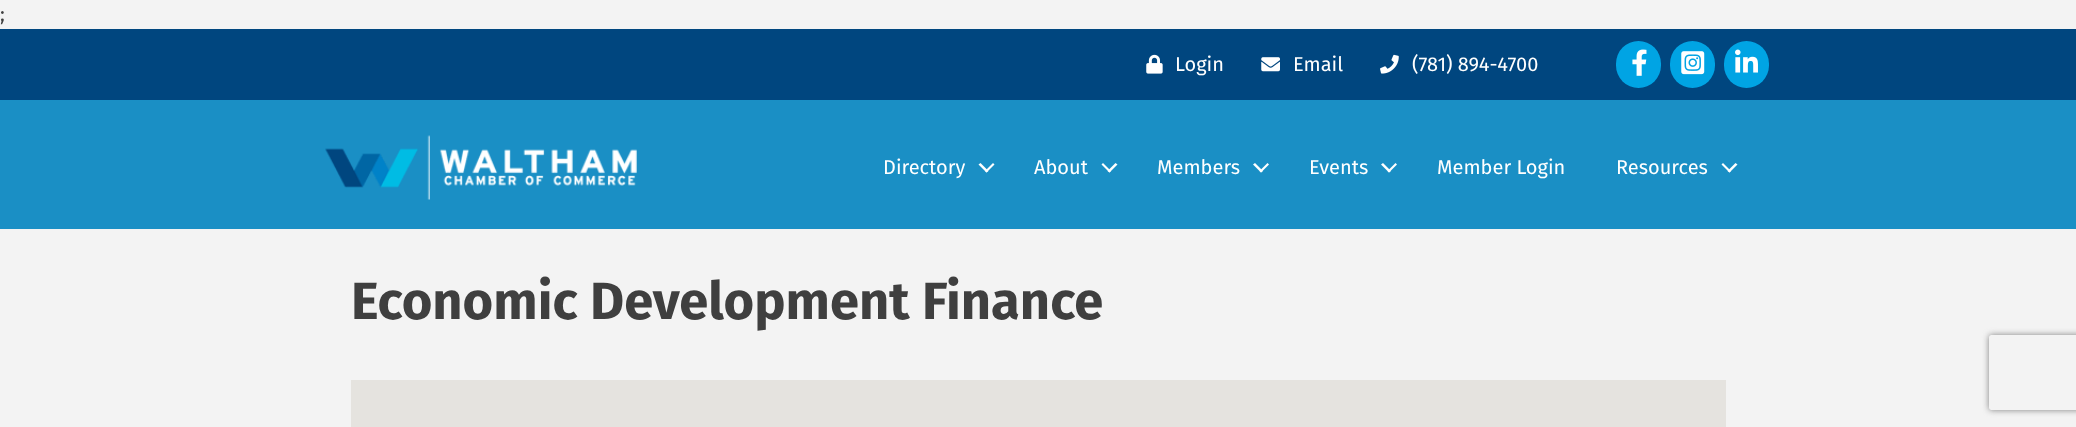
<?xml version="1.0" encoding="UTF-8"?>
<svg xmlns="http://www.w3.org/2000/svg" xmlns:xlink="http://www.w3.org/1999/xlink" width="2076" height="427">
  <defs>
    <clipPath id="clip1"><path d="M 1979 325 h 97 v 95 h -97 z m 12.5 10 h 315 c 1.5 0 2.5 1 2.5 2.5 v 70 c 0 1.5 -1 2.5 -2.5 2.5 h -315 c -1.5 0 -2.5 -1 -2.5 -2.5 v -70 c 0 -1.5 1 -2.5 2.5 -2.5 z" clip-rule="evenodd" /></clipPath>
  </defs>
  <rect width="100%" height="100%" fill="#f3f3f3" />
  <rect y="29" width="2076" height="71" fill="#00467f" />
  <image x="1146" y="54" width="17" height="20" xlink:href="image1.png" />
  <image x="1261" y="57" width="19" height="15" xlink:href="image2.png" />
  <image x="1380" y="54" width="19" height="20" xlink:href="image3.png" />
  <rect x="1616" y="41" width="45" height="47" rx="22.5" fill="#00a4e4" />
  <image x="1632" y="49" width="15" height="27" xlink:href="image4.png" />
  <rect x="1670" y="41" width="45" height="47" rx="22.5" fill="#00a4e4" />
  <image x="1681" y="51" width="24" height="24" xlink:href="image5.png" />
  <rect x="1724" y="41" width="45" height="47" rx="22.5" fill="#00a4e4" />
  <image x="1735" y="49" width="23" height="24" xlink:href="image6.png" />
  <rect y="100" width="2076" height="129" fill="#1a8fc5" />
  <image x="325" y="135" width="312" height="65" xlink:href="image7.png" />
  <path d="M 993 163 l 1.5 1.5 l -8 8 l -1.5 -1.5 z" fill="#ffffff" />
  <path d="M 980.5 163 l 8 8 l -2 1.5 l -8 -8 z" fill="#ffffff" />
  <path d="M 1115.5 163 l 2 1.5 l -8 8 l -2 -1.5 z" fill="#ffffff" />
  <path d="M 1103 163 l 8 8 l -1.5 1.5 l -8 -8 z" fill="#ffffff" />
  <path d="M 1267.5 163 l 1.5 1.5 l -8 8 l -1.5 -1.5 z" fill="#ffffff" />
  <path d="M 1255 163 l 8 8 l -2 1.5 l -8 -8 z" fill="#ffffff" />
  <path d="M 1395.5 163 l 1.5 1.5 l -8 8 l -1.5 -1.5 z" fill="#ffffff" />
  <path d="M 1383 163 l 8 8 l -2 1.5 l -8 -8 z" fill="#ffffff" />
  <path d="M 1735.5 163 l 2 1.5 l -8 8 l -2 -1.5 z" fill="#ffffff" />
  <path d="M 1723 163 l 8 8 l -1.5 1.5 l -8 -8 z" fill="#ffffff" />
  <rect x="351" y="380" width="1375" height="47" fill="#e5e3df" />
  <g clip-path="url(#clip1)">
    <rect x="1989" y="335" width="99" height="75" rx="2.5" fill="#808080" filter="blur(3px)" />
  </g>
  <text x="0" y="21" style="font-family: Fira Sans; font-size: 20px; fill: #3f3f3f">;</text>
  <text x="1175" y="71" style="font-family: Fira Sans; font-size: 20px; fill: #ffffff">Login</text>
  <text x="1293" y="71" style="font-family: Fira Sans; font-size: 20px; fill: #ffffff">Email</text>
  <text x="1412" y="71" style="font-family: Fira Sans; font-size: 20px; fill: #ffffff">(781) 894-4700</text>
  <text x="883" y="174" style="font-family: Fira Sans; font-size: 20px; fill: #ffffff">Directory</text>
  <text x="1034" y="174" style="font-family: Fira Sans; font-size: 20px; fill: #ffffff">About</text>
  <text x="1157" y="174" style="font-family: Fira Sans; font-size: 20px; fill: #ffffff">Members</text>
  <text x="1309" y="174" style="font-family: Fira Sans; font-size: 20px; fill: #ffffff">Events</text>
  <text x="1437" y="174" style="font-family: Fira Sans; font-size: 20px; fill: #ffffff">Member Login</text>
  <text x="1616" y="174" style="font-family: Fira Sans; font-size: 20px; fill: #ffffff">Resources</text>
  <text x="351" y="319" style="font-family: Fira Sans; font-size: 52.5px; font-weight: bold; fill: #3f3f3f">Economic Development Finance</text>
</svg>
